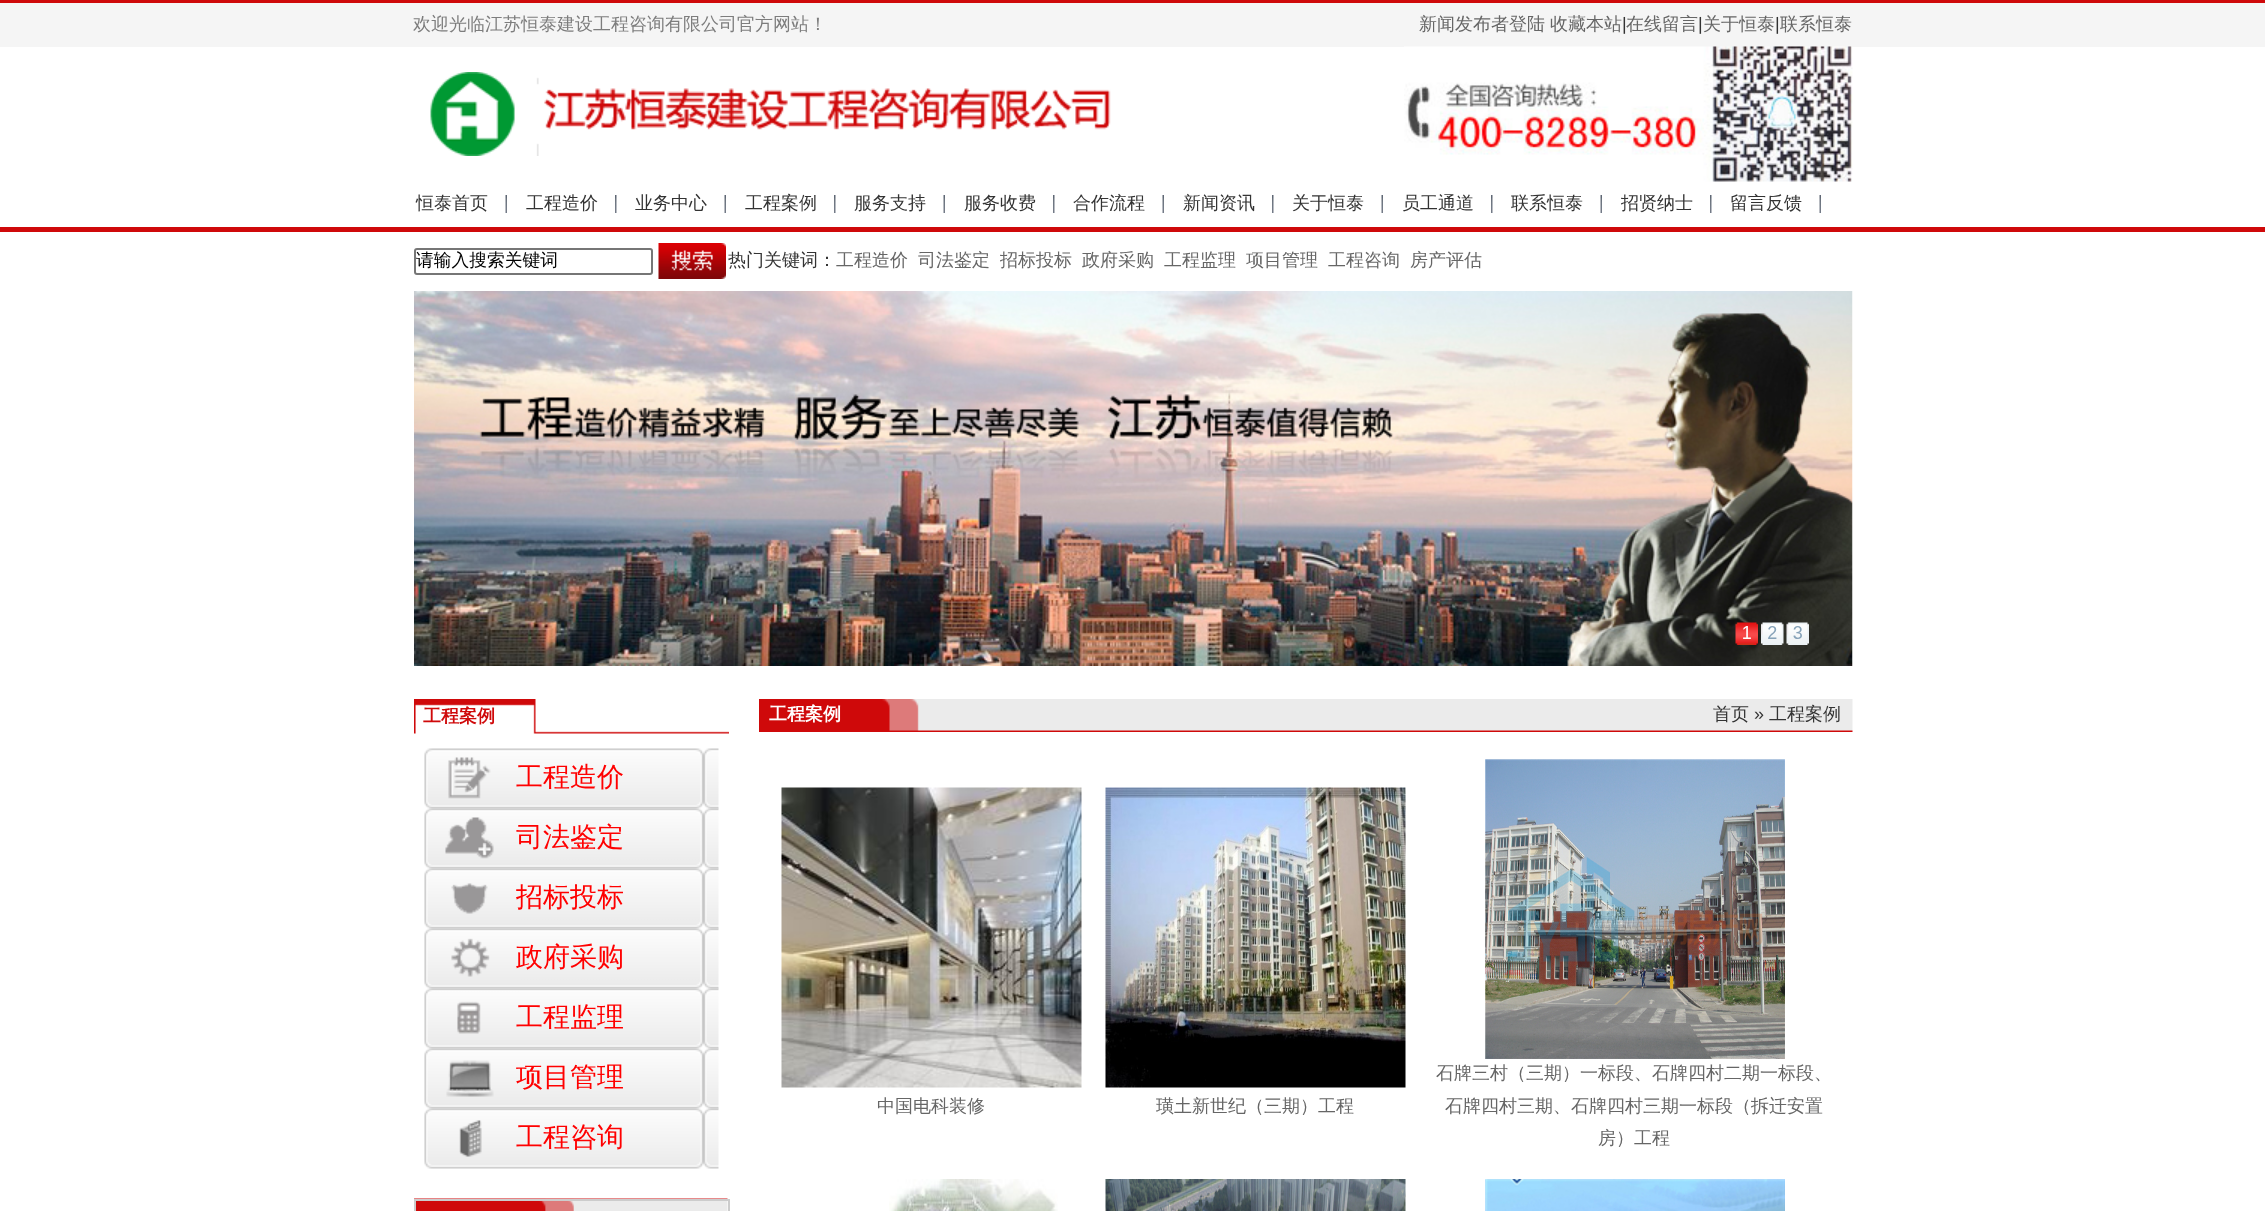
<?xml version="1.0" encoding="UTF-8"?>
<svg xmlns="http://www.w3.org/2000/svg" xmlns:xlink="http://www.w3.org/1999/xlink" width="2265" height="1211">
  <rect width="100%" height="100%" fill="#ffffff" />
  <rect width="2265" height="3" fill="#cf090a" />
  <rect y="3" width="2265" height="44" fill="#f5f5f5" />
  <image x="430" y="72" width="681" height="84" xlink:href="image1.png" />
  <image x="1404" y="46" width="449" height="136" xlink:href="image2.png" />
  <image x="505" y="195" width="2" height="18" xlink:href="image3.png" />
  <image x="615" y="195" width="2" height="18" xlink:href="image4.png" />
  <image x="724" y="195" width="2" height="18" xlink:href="image3.png" />
  <image x="834" y="195" width="2" height="18" xlink:href="image4.png" />
  <image x="943" y="195" width="2" height="18" xlink:href="image3.png" />
  <image x="1053" y="195" width="2" height="18" xlink:href="image4.png" />
  <image x="1162" y="195" width="2" height="18" xlink:href="image3.png" />
  <image x="1272" y="195" width="2" height="18" xlink:href="image4.png" />
  <image x="1381" y="195" width="2" height="18" xlink:href="image3.png" />
  <image x="1491" y="195" width="2" height="18" xlink:href="image4.png" />
  <image x="1600" y="195" width="2" height="18" xlink:href="image3.png" />
  <image x="1710" y="195" width="2" height="18" xlink:href="image4.png" />
  <image x="1819" y="195" width="2" height="18" xlink:href="image3.png" />
  <rect y="227" width="2265" height="5" fill="#cf090a" />
  <rect x="415" y="249" width="237" height="25" rx="2" fill="none" stroke="#767676" stroke-width="2" />
  <image x="658" y="243" width="68" height="36" xlink:href="image5.png" />
  <image x="414" y="291" width="1439" height="375" xlink:href="image6.png" />
  <image x="414" y="699" width="315" height="35" xlink:href="image7.png" />
  <image x="424" y="748" width="295" height="61" xlink:href="image8.png" />
  <image x="448" y="757" width="43" height="42" xlink:href="image9.png" />
  <image x="424" y="808" width="295" height="61" xlink:href="image10.png" />
  <image x="445" y="817" width="49" height="42" xlink:href="image11.png" />
  <image x="424" y="868" width="295" height="61" xlink:href="image12.png" />
  <image x="451" y="883" width="37" height="31" xlink:href="image13.png" />
  <image x="424" y="928" width="295" height="61" xlink:href="image14.png" />
  <image x="451" y="938" width="39" height="39" xlink:href="image15.png" />
  <image x="424" y="988" width="295" height="61" xlink:href="image16.png" />
  <image x="457" y="1001" width="24" height="33" xlink:href="image17.png" />
  <image x="424" y="1048" width="295" height="61" xlink:href="image18.png" />
  <image x="446" y="1060" width="48" height="37" xlink:href="image19.png" />
  <image x="424" y="1108" width="295" height="61" xlink:href="image20.png" />
  <image x="459" y="1120" width="23" height="37" xlink:href="image21.png" />
  <image x="414" y="1198" width="314" height="13" xlink:href="image22.png" />
  <rect x="414" y="1199" width="315" height="2" fill="#cccccc" />
  <rect x="728" y="1199" width="2" height="12" fill="#cccccc" />
  <rect x="414" y="1199" width="2" height="12" fill="#cccccc" />
  <image x="759" y="699" width="1094" height="33" xlink:href="image23.png" />
  <image x="781" y="787" width="301" height="301" xlink:href="image24.png" />
  <image x="1105" y="787" width="301" height="301" xlink:href="image25.png" />
  <image x="1485" y="759" width="300" height="300" xlink:href="image26.png" />
  <image x="889" y="1179" width="169" height="32" xlink:href="image27.png" />
  <image x="1105" y="1179" width="301" height="32" xlink:href="image28.png" />
  <image x="1485" y="1179" width="300" height="32" xlink:href="image29.png" />
  <text x="413" y="30" style="font-family: WenQuanYi Zen Hei; font-size: 18px; font-weight: 500; fill: #7d7d7d">欢迎光临江苏恒泰建设工程咨询有限公司官方网站！</text>
  <text x="1419" y="30" style="font-family: WenQuanYi Zen Hei; font-size: 18px; font-weight: 500; fill: #666666">新闻发布者登陆</text>
  <text x="1550" y="30" style="font-family: WenQuanYi Zen Hei; font-size: 18px; font-weight: 500; fill: #666666">收藏本站</text>
  <text x="1622" y="30" style="font-family: Liberation Sans; font-size: 18px; fill: #333333">|</text>
  <text x="1626" y="30" style="font-family: WenQuanYi Zen Hei; font-size: 18px; font-weight: 500; fill: #666666">在线留言</text>
  <text x="1698" y="30" style="font-family: Liberation Sans; font-size: 18px; fill: #333333">|</text>
  <text x="1703" y="30" style="font-family: WenQuanYi Zen Hei; font-size: 18px; font-weight: 500; fill: #666666">关于恒泰</text>
  <text x="1775" y="30" style="font-family: Liberation Sans; font-size: 18px; fill: #333333">|</text>
  <text x="1780" y="30" style="font-family: WenQuanYi Zen Hei; font-size: 18px; font-weight: 500; fill: #666666">联系恒泰</text>
  <text x="416" y="209" style="font-family: WenQuanYi Zen Hei; font-size: 18px; font-weight: 500; fill: #333333">恒泰首页</text>
  <text x="526" y="209" style="font-family: WenQuanYi Zen Hei; font-size: 18px; font-weight: 500; fill: #333333">工程造价</text>
  <text x="635" y="209" style="font-family: WenQuanYi Zen Hei; font-size: 18px; font-weight: 500; fill: #333333">业务中心</text>
  <text x="745" y="209" style="font-family: WenQuanYi Zen Hei; font-size: 18px; font-weight: 500; fill: #333333">工程案例</text>
  <text x="854" y="209" style="font-family: WenQuanYi Zen Hei; font-size: 18px; font-weight: 500; fill: #333333">服务支持</text>
  <text x="964" y="209" style="font-family: WenQuanYi Zen Hei; font-size: 18px; font-weight: 500; fill: #333333">服务收费</text>
  <text x="1073" y="209" style="font-family: WenQuanYi Zen Hei; font-size: 18px; font-weight: 500; fill: #333333">合作流程</text>
  <text x="1183" y="209" style="font-family: WenQuanYi Zen Hei; font-size: 18px; font-weight: 500; fill: #333333">新闻资讯</text>
  <text x="1292" y="209" style="font-family: WenQuanYi Zen Hei; font-size: 18px; font-weight: 500; fill: #333333">关于恒泰</text>
  <text x="1402" y="209" style="font-family: WenQuanYi Zen Hei; font-size: 18px; font-weight: 500; fill: #333333">员工通道</text>
  <text x="1511" y="209" style="font-family: WenQuanYi Zen Hei; font-size: 18px; font-weight: 500; fill: #333333">联系恒泰</text>
  <text x="1621" y="209" style="font-family: WenQuanYi Zen Hei; font-size: 18px; font-weight: 500; fill: #333333">招贤纳士</text>
  <text x="1730" y="209" style="font-family: WenQuanYi Zen Hei; font-size: 18px; font-weight: 500; fill: #333333">留言反馈</text>
  <text x="416" y="266" style="font-family: WenQuanYi Zen Hei; font-size: 17.75px; font-weight: 500; fill: #000000">请输入搜索关键词</text>
  <text x="728" y="266" style="font-family: WenQuanYi Zen Hei; font-size: 18px; font-weight: 500; fill: #333333">热门关键词：</text>
  <text x="836" y="266" style="font-family: WenQuanYi Zen Hei; font-size: 18px; font-weight: 500; fill: #666666">工程造价</text>
  <text x="918" y="266" style="font-family: WenQuanYi Zen Hei; font-size: 18px; font-weight: 500; fill: #666666">司法鉴定</text>
  <text x="1000" y="266" style="font-family: WenQuanYi Zen Hei; font-size: 18px; font-weight: 500; fill: #666666">招标投标</text>
  <text x="1082" y="266" style="font-family: WenQuanYi Zen Hei; font-size: 18px; font-weight: 500; fill: #666666">政府采购</text>
  <text x="1164" y="266" style="font-family: WenQuanYi Zen Hei; font-size: 18px; font-weight: 500; fill: #666666">工程监理</text>
  <text x="1246" y="266" style="font-family: WenQuanYi Zen Hei; font-size: 18px; font-weight: 500; fill: #666666">项目管理</text>
  <text x="1328" y="266" style="font-family: WenQuanYi Zen Hei; font-size: 18px; font-weight: 500; fill: #666666">工程咨询</text>
  <text x="1410" y="266" style="font-family: WenQuanYi Zen Hei; font-size: 18px; font-weight: 500; fill: #666666">房产评估</text>
  <text x="423" y="722" style="font-family: WenQuanYi Zen Hei; font-size: 18px; font-weight: bold; fill: #cf090a">工程案例</text>
  <text x="516" y="786" style="font-family: WenQuanYi Zen Hei; font-size: 27px; font-weight: 500; fill: #ff0000">工程造价</text>
  <text x="516" y="846" style="font-family: WenQuanYi Zen Hei; font-size: 27px; font-weight: 500; fill: #ff0000">司法鉴定</text>
  <text x="516" y="906" style="font-family: WenQuanYi Zen Hei; font-size: 27px; font-weight: 500; fill: #ff0000">招标投标</text>
  <text x="516" y="966" style="font-family: WenQuanYi Zen Hei; font-size: 27px; font-weight: 500; fill: #ff0000">政府采购</text>
  <text x="516" y="1026" style="font-family: WenQuanYi Zen Hei; font-size: 27px; font-weight: 500; fill: #ff0000">工程监理</text>
  <text x="516" y="1086" style="font-family: WenQuanYi Zen Hei; font-size: 27px; font-weight: 500; fill: #ff0000">项目管理</text>
  <text x="516" y="1146" style="font-family: WenQuanYi Zen Hei; font-size: 27px; font-weight: 500; fill: #ff0000">工程咨询</text>
  <text x="769" y="720" style="font-family: WenQuanYi Zen Hei; font-size: 18px; font-weight: bold; fill: #ffffff">工程案例</text>
  <text x="1713" y="720" style="font-family: WenQuanYi Zen Hei; font-size: 18px; font-weight: 500; fill: #333333">首页</text>
  <text x="1754" y="720" style="font-family: Liberation Sans; font-size: 18px; fill: #333333">»</text>
  <text x="1769" y="720" style="font-family: WenQuanYi Zen Hei; font-size: 18px; font-weight: 500; fill: #333333">工程案例</text>
  <text x="877" y="1112" style="font-family: WenQuanYi Zen Hei; font-size: 18px; font-weight: 500; fill: #666666">中国电科装修</text>
  <text x="1156" y="1112" style="font-family: WenQuanYi Zen Hei; font-size: 18px; font-weight: 500; fill: #666666">璜土新世纪（三期）工程</text>
  <text x="1436" y="1079" style="font-family: WenQuanYi Zen Hei; font-size: 18px; font-weight: 500; fill: #666666">石牌三村（三期）一标段、石牌四村二期一标段、</text>
  <text x="1445" y="1112" style="font-family: WenQuanYi Zen Hei; font-size: 18px; font-weight: 500; fill: #666666">石牌四村三期、石牌四村三期一标段（拆迁安置</text>
  <text x="1598" y="1144" style="font-family: WenQuanYi Zen Hei; font-size: 18px; font-weight: 500; fill: #666666">房）工程</text>
</svg>
